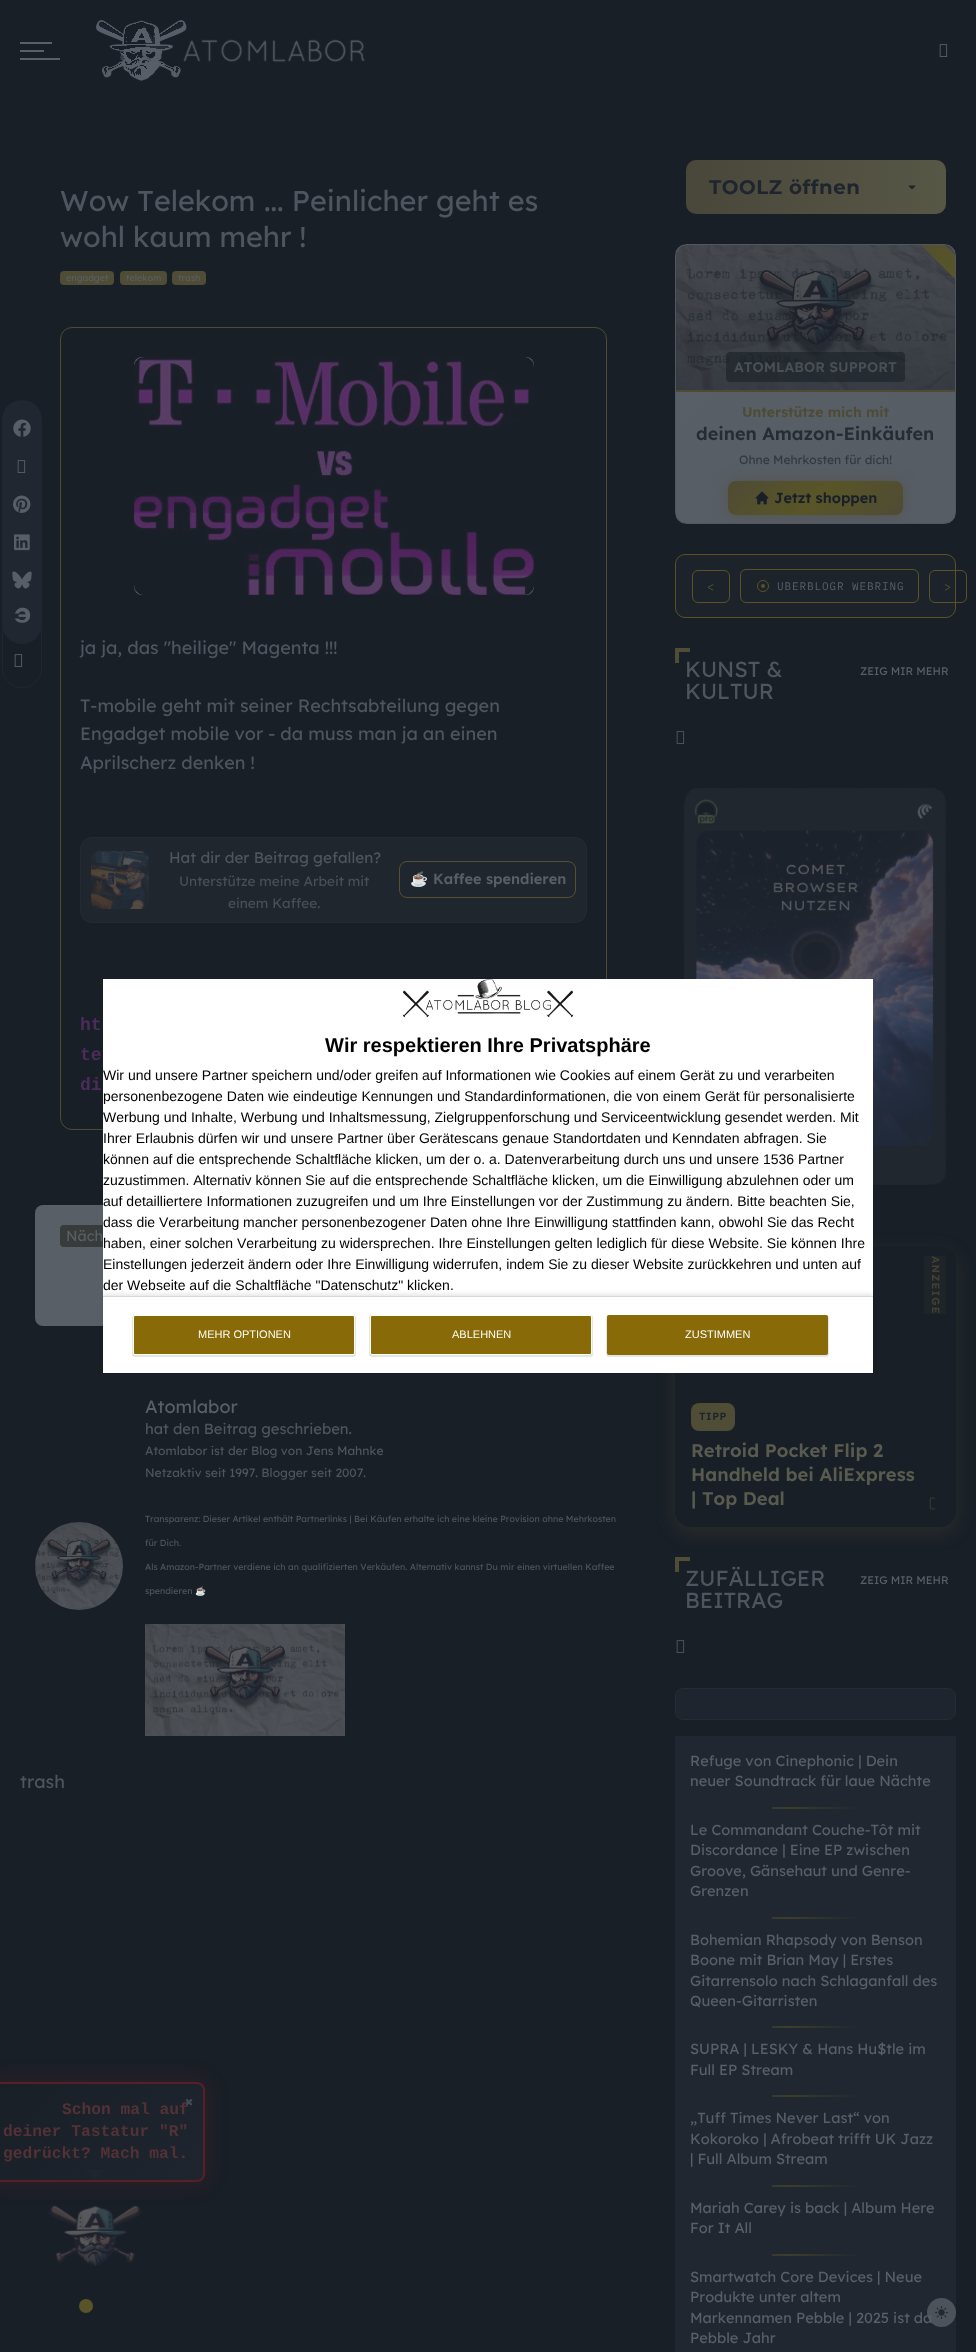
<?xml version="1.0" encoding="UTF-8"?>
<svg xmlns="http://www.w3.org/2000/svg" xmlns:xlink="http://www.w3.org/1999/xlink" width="976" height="2352">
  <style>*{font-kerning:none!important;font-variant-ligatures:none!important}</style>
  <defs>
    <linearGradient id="g1" gradientUnits="userSpaceOnUse" x1="686" y1="187" x2="946" y2="187"><stop offset="0" stop-color="#49473a" /><stop offset="1" stop-color="#575746" /></linearGradient>
    <clipPath id="clip1"><rect x="675" y="244" width="281" height="280" rx="12" /></clipPath>
    <linearGradient id="g2" gradientUnits="userSpaceOnUse" x1="676" y1="245" x2="955" y2="523"><stop offset="0" stop-color="#595f67" /><stop offset="1" stop-color="#575d65" /></linearGradient>
    <linearGradient id="g3" gradientUnits="userSpaceOnUse" x1="816" y1="245" x2="816" y2="390"><stop offset="0" stop-color="#191f27" stop-opacity="0.1" /><stop offset="1" stop-color="#191f27" stop-opacity="0.4" /></linearGradient>
    <linearGradient id="g4" gradientUnits="userSpaceOnUse" x1="905" y1="217" x2="960" y2="272"><stop offset="0" stop-color="#4e4b35" /><stop offset="1" stop-color="#595527" /></linearGradient>
    <clipPath id="clip2"><rect x="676" y="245" width="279" height="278" rx="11" /></clipPath>
    <linearGradient id="g5" gradientUnits="userSpaceOnUse" x1="763" y1="446" x2="868" y2="550"><stop offset="0" stop-color="#4e4b35" /><stop offset="0.5" stop-color="#595527" /><stop offset="1" stop-color="#4e4b35" /></linearGradient>
    <clipPath id="clip3"><path d="M 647 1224 h 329 v 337 h -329 z m 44 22 h 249 c 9 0 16 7 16 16 v 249 c 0 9 -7 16 -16 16 h -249 c -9 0 -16 -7 -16 -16 v -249 c 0 -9 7 -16 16 -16 z" clip-rule="evenodd" /></clipPath>
    <linearGradient id="g6" gradientUnits="userSpaceOnUse" x1="685" y1="1808" x2="859" y2="1808"><stop offset="0" stop-color="#212730" /><stop offset="0.6" stop-color="#3d3e2b" /><stop offset="1" stop-color="#212730" /></linearGradient>
    <linearGradient id="g7" gradientUnits="userSpaceOnUse" x1="685" y1="1918" x2="859" y2="1918"><stop offset="0" stop-color="#212730" /><stop offset="0.6" stop-color="#3d3e2b" /><stop offset="1" stop-color="#212730" /></linearGradient>
    <linearGradient id="g8" gradientUnits="userSpaceOnUse" x1="685" y1="2027" x2="859" y2="2027"><stop offset="0" stop-color="#212730" /><stop offset="0.6" stop-color="#3d3e2b" /><stop offset="1" stop-color="#212730" /></linearGradient>
    <linearGradient id="g9" gradientUnits="userSpaceOnUse" x1="685" y1="2096" x2="859" y2="2096"><stop offset="0" stop-color="#212730" /><stop offset="0.6" stop-color="#3d3e2b" /><stop offset="1" stop-color="#212730" /></linearGradient>
    <linearGradient id="g10" gradientUnits="userSpaceOnUse" x1="685" y1="2186" x2="859" y2="2186"><stop offset="0" stop-color="#212730" /><stop offset="0.6" stop-color="#3d3e2b" /><stop offset="1" stop-color="#212730" /></linearGradient>
    <linearGradient id="g11" gradientUnits="userSpaceOnUse" x1="685" y1="2255" x2="859" y2="2255"><stop offset="0" stop-color="#212730" /><stop offset="0.6" stop-color="#3d3e2b" /><stop offset="1" stop-color="#212730" /></linearGradient>
    <clipPath id="clip4"><path d="M 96 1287 h 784 v 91 h -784 z m 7 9 h 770 v 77 h -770 z" clip-rule="evenodd" /></clipPath>
    <linearGradient id="g12" gradientUnits="userSpaceOnUse" x1="17" y1="2054" x2="173" y2="2210"><stop offset="0" stop-color="#191f27" /><stop offset="1" stop-color="#1f252e" /></linearGradient>
    <linearGradient id="g13" gradientUnits="userSpaceOnUse" x1="79" y1="2299" x2="93" y2="2313"><stop offset="0" stop-color="#595527" /><stop offset="1" stop-color="#595227" /></linearGradient>
  </defs>
  <rect width="100%" height="100%" fill="#191f27" />
  <path d="M 52 44 v -2 h -32 v 2 z m 8 16 v -2 h -40 v 2 z m -16 -8 v -2 h -24 v 2 z" fill="#595f67" />
  <image x="95" y="20" width="271" height="61" xlink:href="image1.png" />
  <image x="939" y="44" width="9" height="13" xlink:href="image2.png" />
  <path d="M 2.5 629.5 h 39 v 38.5 c 0 11 -8.5 19.5 -19.5 19.5 c -11 0 -19.5 -8.5 -19.5 -19.5 z" fill="none" stroke="#212730" />
  <rect x="2" y="400" width="40" height="244" rx="20" fill="#212730" />
  <image x="13" y="419" width="18" height="18" xlink:href="image3.png" />
  <image x="17" y="460" width="9" height="13" xlink:href="image4.png" />
  <image x="13" y="495" width="18" height="18" xlink:href="image5.png" />
  <image x="14" y="534" width="16" height="17" xlink:href="image6.png" />
  <image x="12" y="571" width="20" height="18" xlink:href="image7.png" />
  <image x="14" y="607" width="17" height="16" xlink:href="image8.png" />
  <image x="14" y="654" width="9" height="13" xlink:href="image9.png" />
  <rect x="60" y="271" width="54" height="14" rx="4" fill="#4f4d36" />
  <rect x="120" y="271" width="47" height="14" rx="4" fill="#4f4d36" />
  <rect x="172" y="271" width="34" height="14" rx="4" fill="#4f4d36" />
  <rect x="60.5" y="327.5" width="546" height="802" rx="11.5" fill="none" stroke="#4e4b35" />
  <image x="134" y="357" width="400" height="238" xlink:href="image10.png" />
  <rect x="80" y="837" width="507" height="86" rx="12" fill="#20262e" />
  <rect x="80.5" y="837.5" width="506" height="85" rx="11.5" fill="none" stroke="#595f67" stroke-opacity="0.08" />
  <image x="91" y="851" width="58" height="58" xlink:href="image11.png" />
  <rect x="399.5" y="861.5" width="176" height="36" rx="7.5" fill="none" stroke="#554f34" />
  <rect x="35" y="1205" width="597" height="121" rx="8" fill="#595f67" />
  <rect x="60" y="1225" width="131" height="22" rx="4" fill="#373b39" />
  <image x="35" y="1522" width="88" height="88" xlink:href="image12.png" />
  <image x="145" y="1624" width="200" height="112" xlink:href="image13.png" />
  <rect x="686" y="160" width="260" height="54" rx="10" fill="url(#g1)" />
  <path d="M 908 185.5 l 4 4 l 4 -4 z" fill="#1f252e" />
  <g clip-path="url(#clip1)">
    <rect x="676" y="245" width="279" height="278" fill="url(#g2)" />
  </g>
  <rect x="675.5" y="244.5" width="280" height="279" rx="11.5" fill="none" stroke="#51575f" />
  <image x="676" y="245" width="279" height="145" xlink:href="image14.png" />
  <path d="M 687 245 h 257 c 6 0 11 5 11 11 v 134 h -279 v -134 c 0 -6 5 -11 11 -11 z" fill="url(#g3)" />
  <path d="M 955 277 l -1 1 l -33 -33 h 24 l 10 10 z" fill="url(#g4)" />
  <rect x="676" y="390" width="279" height="2" fill="#4e4b35" />
  <rect x="726" y="352" width="179" height="30" rx="4" fill="#191f27" fill-opacity="0.6" />
  <g clip-path="url(#clip2)">
    <rect x="728" y="481" width="175" height="34" rx="8" fill="#4e4b35" fill-opacity="0.5" filter="blur(7.5px)" />
  </g>
  <rect x="728" y="481" width="175" height="34" rx="8" fill="url(#g5)" />
  <image x="755" y="491" width="14" height="14" xlink:href="image15.png" />
  <rect x="675.5" y="554.5" width="280" height="63" rx="9.5" fill="#1d232b" stroke="#595227" />
  <rect x="692.5" y="570.5" width="37" height="32" rx="5.5" fill="none" stroke="#595227" />
  <rect x="740.5" y="569.5" width="178" height="33" rx="5.5" fill="none" stroke="#595227" />
  <circle cx="763" cy="586" r="5.5" fill="none" stroke="#595227" />
  <circle cx="763" cy="586" r="2" fill="#595227" />
  <rect x="929.5" y="570.5" width="37" height="32" rx="5.5" fill="none" stroke="#595227" />
  <rect x="675" y="648" width="15" height="4" fill="#4f4d36" />
  <rect x="675" y="648" width="4" height="15" fill="#4f4d36" />
  <image x="676" y="731" width="9" height="13" xlink:href="image16.png" />
  <image x="683" y="787" width="263" height="398" xlink:href="image17.png" />
  <g clip-path="url(#clip3)">
    <rect x="675" y="1252" width="281" height="281" rx="16" fill="#4f4d36" fill-opacity="0.3" filter="blur(9px)" />
  </g>
  <rect x="924" y="1256" width="22" height="58" fill="#1f2429" />
  <rect x="691" y="1403" width="44" height="28" rx="8" fill="#4f4d36" />
  <image x="929" y="1497" width="6" height="13" xlink:href="image18.png" />
  <rect x="675" y="1557" width="15" height="4" fill="#4f4d36" />
  <rect x="675" y="1557" width="4" height="15" fill="#4f4d36" />
  <image x="676" y="1640" width="9" height="13" xlink:href="image16.png" />
  <rect x="675.5" y="1688.5" width="280" height="31" rx="7.5" fill="#1f252e" stroke="#262c34" />
  <rect x="675" y="1736" width="281" height="616" fill="#212730" />
  <rect x="772" y="1807" width="87" height="2" fill="url(#g6)" />
  <rect x="772" y="1917" width="87" height="2" fill="url(#g7)" />
  <rect x="772" y="2026" width="87" height="2" fill="url(#g8)" />
  <rect x="772" y="2095" width="87" height="2" fill="url(#g9)" />
  <rect x="772" y="2185" width="87" height="2" fill="url(#g10)" />
  <rect x="772" y="2254" width="87" height="2" fill="url(#g11)" />
  <rect x="103" y="979" width="770" height="394" fill="#ffffff" />
  <image x="403" y="979" width="170" height="39" xlink:href="image19.png" />
  <g clip-path="url(#clip4)">
    <rect x="103" y="1294" width="770" height="77" fill="#000000" fill-opacity="0.1" filter="blur(2px)" />
  </g>
  <rect x="103" y="1296" width="770" height="1" fill="#d8d8d8" />
  <rect x="132" y="1315" width="224" height="42" rx="3" fill="#000000" fill-opacity="0.1" filter="blur(0.5px)" />
  <rect x="133.5" y="1315.5" width="221" height="39" rx="1.5" fill="#886a08" stroke="#fffff0" />
  <rect x="369" y="1315" width="224" height="42" rx="3" fill="#000000" fill-opacity="0.1" filter="blur(0.5px)" />
  <rect x="370.5" y="1315.5" width="221" height="39" rx="1.5" fill="#886a08" stroke="#fffff0" />
  <rect x="606" y="1315" width="223" height="42" rx="3" fill="#000000" fill-opacity="0.1" filter="blur(0.5px)" />
  <rect x="607" y="1315" width="221" height="40" rx="2" fill="#886a08" />
  <image x="48" y="2204" width="94" height="63" xlink:href="image20.png" />
  <rect x="-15" y="2082" width="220" height="100" rx="8" fill="#591f27" fill-opacity="0.4" filter="blur(10px)" />
  <rect y="2084" width="203" height="96" fill="url(#g12)" />
  <rect x="-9" y="2083" width="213" height="98" rx="7" fill="none" stroke="#591f27" stroke-width="2" />
  <path d="M 85 2170 h 20 l -10 10 z" fill="#1f252e" />
  <circle cx="86" cy="2306" r="7" fill="url(#g13)" />
  <text x="60" y="211" style="font-family: Lexend; font-size: 28.75px; fill: #4f555e">Wow Telekom</text>
  <text x="264" y="211" style="font-family: Lexend; font-size: 28.75px; fill: #4f555e">... Peinlicher geht es</text>
  <text x="60" y="247" style="font-family: Lexend; font-size: 28.75px; fill: #4f555e">wohl kaum mehr !</text>
  <text x="66" y="281" style="font-family: Lexend; font-size: 9px; fill: #595f67">engadget</text>
  <text x="126" y="281" style="font-family: Lexend; font-size: 9px; fill: #595f67">telekom</text>
  <text x="178" y="281" style="font-family: Lexend; font-size: 9px; fill: #595f67">trash</text>
  <text x="80" y="654" style="font-family: Lexend; font-size: 18px; fill: #4f555e">ja ja, das "heilige" Magenta !!!</text>
  <text x="80" y="712" style="font-family: Lexend; font-size: 18px; fill: #4f555e">T-mobile geht mit seiner Rechtsabteilung gegen</text>
  <text x="80" y="740" style="font-family: Lexend; font-size: 18px; fill: #4f555e">Engadget mobile vor - da muss man ja an einen</text>
  <text x="80" y="769" style="font-family: Lexend; font-size: 18px; fill: #4f555e">Aprilscherz denken !</text>
  <text x="169" y="863" style="font-family: Lexend; font-size: 15.25px; fill: #4f555e">Hat dir der Beitrag gefallen?</text>
  <text x="179" y="886" style="font-family: Lexend; font-size: 13.6px; fill: #494f57">Unterstütze meine Arbeit mit</text>
  <text x="228" y="908" style="font-family: Lexend; font-size: 13.6px; fill: #494f57">einem Kaffee.</text>
  <text x="410" y="884" style="font-family: Noto Color Emoji; font-size: 14.5px; font-weight: bold; fill: #595f67">☕</text>
  <text x="433" y="884" style="font-family: Lexend; font-size: 14.5px; font-weight: 600; fill: #595f67">Kaffee spendieren</text>
  <text x="80" y="1030" style="font-family: Liberation Mono; font-size: 18px; font-weight: bold; fill: #4c2c5a">ht</text>
  <text x="80" y="1060" style="font-family: Liberation Mono; font-size: 18px; font-weight: bold; fill: #4c2c5a">te</text>
  <text x="80" y="1090" style="font-family: Liberation Mono; font-size: 18px; font-weight: bold; fill: #4c2c5a">di</text>
  <text x="66" y="1241" style="font-family: Lexend; font-size: 14.5px; fill: #595f67">Näch</text>
  <text x="145" y="1413" style="font-family: Lexend; font-size: 18px; fill: #595f67">Atomlabor</text>
  <text x="145" y="1434" style="font-family: Lexend; font-size: 14.75px; fill: #4f555e">hat den Beitrag geschrieben.</text>
  <text x="145" y="1455" style="font-family: Lexend; font-size: 12.1px; fill: #4f555e">Atomlabor ist der Blog von Jens Mahnke</text>
  <text x="145" y="1477" style="font-family: Lexend; font-size: 12.1px; fill: #4f555e">Netzaktiv seit 1997. Blogger seit 2007.</text>
  <text x="145" y="1522" style="font-family: Lexend; font-size: 8.85px; fill: #4f555e">Transparenz: Dieser Artikel enthält Partnerlinks | Bei Käufen erhalte ich eine kleine Provision ohne Mehrkosten</text>
  <text x="145" y="1546" style="font-family: Lexend; font-size: 8.85px; fill: #4f555e">für Dich.</text>
  <text x="145" y="1570" style="font-family: Lexend; font-size: 8.85px; fill: #4f555e">Als Amazon-Partner verdiene ich an qualifizierten Verkäufen. Alternativ kannst Du mir einen virtuellen Kaffee</text>
  <text x="145" y="1594" style="font-family: Lexend; font-size: 8.85px; fill: #4f555e">spendieren</text>
  <text x="195" y="1594" style="font-family: Noto Color Emoji; font-size: 8.85px; fill: #4f555e">☕</text>
  <text x="20" y="1788" style="font-family: Lexend; font-size: 18px; fill: #4f555e">trash</text>
  <text x="709" y="194" style="font-family: Montserrat; font-size: 19.75px; font-weight: bold; letter-spacing: 0.6px; fill: #1f252e">TOOLZ öffnen</text>
  <text x="734" y="372" style="font-family: Lexend; font-size: 14px; font-weight: 600; fill: #494f57">ATOMLABOR SUPPORT</text>
  <text x="742" y="417" style="font-family: Lexend; font-size: 14px; font-weight: 600; fill: #4e4b35">Unterstütze mich mit</text>
  <text x="696" y="440" style="font-family: Lexend; font-size: 18px; font-weight: 600; fill: #262c34">deinen Amazon-Einkäufen</text>
  <text x="739" y="464" style="font-family: Lexend; font-size: 12px; fill: #323841">Ohne Mehrkosten für dich!</text>
  <text x="774" y="503" style="font-family: Lexend; font-size: 14.5px; font-weight: 600; fill: #191f27">Jetzt shoppen</text>
  <text x="707" y="591" style="font-family: IBM Plex Mono; font-size: 12px; letter-spacing: 1px; fill: #595227">&lt;</text>
  <text x="777" y="590" style="font-family: IBM Plex Mono; font-size: 11px; letter-spacing: 0.9px; fill: #595f67">UBERBLOGR WEBRING</text>
  <text x="944" y="591" style="font-family: IBM Plex Mono; font-size: 12px; letter-spacing: 1px; fill: #595227">&gt;</text>
  <text x="685" y="677" style="font-family: Lexend; font-size: 21.75px; fill: #4f555e">KUNST &amp;</text>
  <text x="860" y="675" style="font-family: Lexend; font-size: 11px; fill: #595f67">ZEIG MIR MEHR</text>
  <text x="685" y="699" style="font-family: Lexend; font-size: 21.75px; fill: #4f555e">KULTUR</text>
  <text x="932" y="1256" transform="rotate(90 932 1256)" style="font-family: Lexend; font-size: 10.5px; font-weight: 600; letter-spacing: 1.25px; fill: #414232">ANZEIGE</text>
  <text x="699" y="1420" style="font-family: Lexend; font-size: 10.5px; font-weight: 600; letter-spacing: 0.5px; fill: #1f252e">TIPP</text>
  <text x="691" y="1457" style="font-family: Lexend; font-size: 18.4px; font-weight: 600; fill: #595b4f">Retroid Pocket Flip 2</text>
  <text x="691" y="1481" style="font-family: Lexend; font-size: 18.4px; font-weight: 600; fill: #595b4f">Handheld bei AliExpress</text>
  <text x="691" y="1505" style="font-family: Lexend; font-size: 18.4px; font-weight: 600; fill: #595b4f">| Top Deal</text>
  <text x="685" y="1586" style="font-family: Lexend; font-size: 21.75px; fill: #4f555e">ZUFÄLLIGER</text>
  <text x="860" y="1584" style="font-family: Lexend; font-size: 11px; fill: #595f67">ZEIG MIR MEHR</text>
  <text x="685" y="1608" style="font-family: Lexend; font-size: 21.75px; fill: #4f555e">BEITRAG</text>
  <text x="690" y="1766" style="font-family: Lexend; font-size: 14.6px; fill: #595f67">Refuge von Cinephonic | Dein</text>
  <text x="690" y="1786" style="font-family: Lexend; font-size: 14.6px; fill: #595f67">neuer Soundtrack für laue Nächte</text>
  <text x="690" y="1835" style="font-family: Lexend; font-size: 14.6px; fill: #595f67">Le Commandant Couche-Tôt mit</text>
  <text x="690" y="1855" style="font-family: Lexend; font-size: 14.6px; fill: #595f67">Discordance | Eine EP zwischen</text>
  <text x="690" y="1876" style="font-family: Lexend; font-size: 14.6px; fill: #595f67">Groove, Gänsehaut und Genre-</text>
  <text x="690" y="1896" style="font-family: Lexend; font-size: 14.6px; fill: #595f67">Grenzen</text>
  <text x="690" y="1945" style="font-family: Lexend; font-size: 14.6px; fill: #595f67">Bohemian Rhapsody von Benson</text>
  <text x="690" y="1965" style="font-family: Lexend; font-size: 14.6px; fill: #595f67">Boone mit Brian May | Erstes</text>
  <text x="690" y="1986" style="font-family: Lexend; font-size: 14.6px; fill: #595f67">Gitarrensolo nach Schlaganfall des</text>
  <text x="690" y="2006" style="font-family: Lexend; font-size: 14.6px; fill: #595f67">Queen-Gitarristen</text>
  <text x="690" y="2054" style="font-family: Lexend; font-size: 14.6px; fill: #595f67">SUPRA | LESKY &amp; Hans Hu$tle im</text>
  <text x="690" y="2075" style="font-family: Lexend; font-size: 14.6px; fill: #595f67">Full EP Stream</text>
  <text x="690" y="2123" style="font-family: Lexend; font-size: 14.6px; fill: #595f67">„Tuff Times Never Last“ von</text>
  <text x="690" y="2144" style="font-family: Lexend; font-size: 14.6px; fill: #595f67">Kokoroko | Afrobeat trifft UK Jazz</text>
  <text x="690" y="2164" style="font-family: Lexend; font-size: 14.6px; fill: #595f67">| Full Album Stream</text>
  <text x="690" y="2213" style="font-family: Lexend; font-size: 14.6px; fill: #595f67">Mariah Carey is back | Album Here</text>
  <text x="690" y="2233" style="font-family: Lexend; font-size: 14.6px; fill: #595f67">For It All</text>
  <text x="690" y="2282" style="font-family: Lexend; font-size: 14.6px; fill: #595f67">Smartwatch Core Devices | Neue</text>
  <text x="690" y="2302" style="font-family: Lexend; font-size: 14.6px; fill: #595f67">Produkte unter altem</text>
  <text x="690" y="2323" style="font-family: Lexend; font-size: 14.6px; fill: #595f67">Markennamen Pebble | 2025 ist da</text>
  <text x="690" y="2343" style="font-family: Lexend; font-size: 14.6px; fill: #595f67">Pebble Jahr</text>
  <text x="325" y="1052" style="font-family: Liberation Sans; font-size: 20px; font-weight: bold; fill: #000000">Wir respektieren Ihre Privatsphäre</text>
  <text x="103" y="1080" style="font-family: Liberation Sans; font-size: 14px; fill: #000000">Wir und unsere Partner speichern und/oder greifen auf Informationen wie Cookies auf einem Gerät zu und verarbeiten</text>
  <text x="103" y="1101" style="font-family: Liberation Sans; font-size: 14px; fill: #000000">personenbezogene Daten wie eindeutige Kennungen und Standardinformationen, die von einem Gerät für personalisierte</text>
  <text x="103" y="1122" style="font-family: Liberation Sans; font-size: 14px; fill: #000000">Werbung und Inhalte, Werbung und Inhaltsmessung, Zielgruppenforschung und Serviceentwicklung gesendet werden. Mit</text>
  <text x="103" y="1143" style="font-family: Liberation Sans; font-size: 14px; fill: #000000">Ihrer Erlaubnis dürfen wir und unsere Partner über Gerätescans genaue Standortdaten und Kenndaten abfragen. Sie</text>
  <text x="103" y="1164" style="font-family: Liberation Sans; font-size: 14px; fill: #000000">können auf die entsprechende Schaltfläche klicken, um der o. a. Datenverarbeitung durch uns und unsere 1536 Partner</text>
  <text x="103" y="1185" style="font-family: Liberation Sans; font-size: 14px; fill: #000000">zuzustimmen. Alternativ können Sie auf die entsprechende Schaltfläche klicken, um die Einwilligung abzulehnen oder um</text>
  <text x="103" y="1206" style="font-family: Liberation Sans; font-size: 14px; fill: #000000">auf detailliertere Informationen zuzugreifen und um Ihre Einstellungen vor der Zustimmung zu ändern. Bitte beachten Sie,</text>
  <text x="103" y="1227" style="font-family: Liberation Sans; font-size: 14px; fill: #000000">dass die Verarbeitung mancher personenbezogener Daten ohne Ihre Einwilligung stattfinden kann, obwohl Sie das Recht</text>
  <text x="103" y="1248" style="font-family: Liberation Sans; font-size: 14px; fill: #000000">haben, einer solchen Verarbeitung zu widersprechen. Ihre Einstellungen gelten lediglich für diese Website. Sie können Ihre</text>
  <text x="103" y="1269" style="font-family: Liberation Sans; font-size: 14px; fill: #000000">Einstellungen jederzeit ändern oder Ihre Einwilligung widerrufen, indem Sie zu dieser Website zurückkehren und unten auf</text>
  <text x="103" y="1290" style="font-family: Liberation Sans; font-size: 14px; fill: #000000">der Webseite auf die Schaltfläche "Datenschutz" klicken.</text>
  <text x="198" y="1338" style="font-family: Liberation Sans; font-size: 11px; fill: #fffff0">MEHR OPTIONEN</text>
  <text x="452" y="1338" style="font-family: Liberation Sans; font-size: 11px; fill: #fffff0">ABLEHNEN</text>
  <text x="685" y="1338" style="font-family: Liberation Sans; font-size: 11px; fill: #ffffff">ZUSTIMMEN</text>
  <text x="62" y="2114" style="font-family: Liberation Mono; font-size: 16.25px; font-weight: bold; fill: #533236">Schon mal auf</text>
  <text x="3" y="2136" style="font-family: Liberation Mono; font-size: 16.25px; font-weight: bold; fill: #533236">deiner Tastatur "R"</text>
  <text x="3" y="2158" style="font-family: Liberation Mono; font-size: 16.25px; font-weight: bold; fill: #533236">gedrückt? Mach mal.</text>
  <text x="185" y="2107" style="font-family: DejaVu Sans Mono; font-size: 14px; font-weight: bold; fill: #434952">✖</text>
  <circle cx="941.5" cy="2312.5" r="14.5" fill="#595f67" fill-opacity="0.8" />
  <image x="935" y="2306" width="13" height="13" xlink:href="image21.png" />
</svg>
